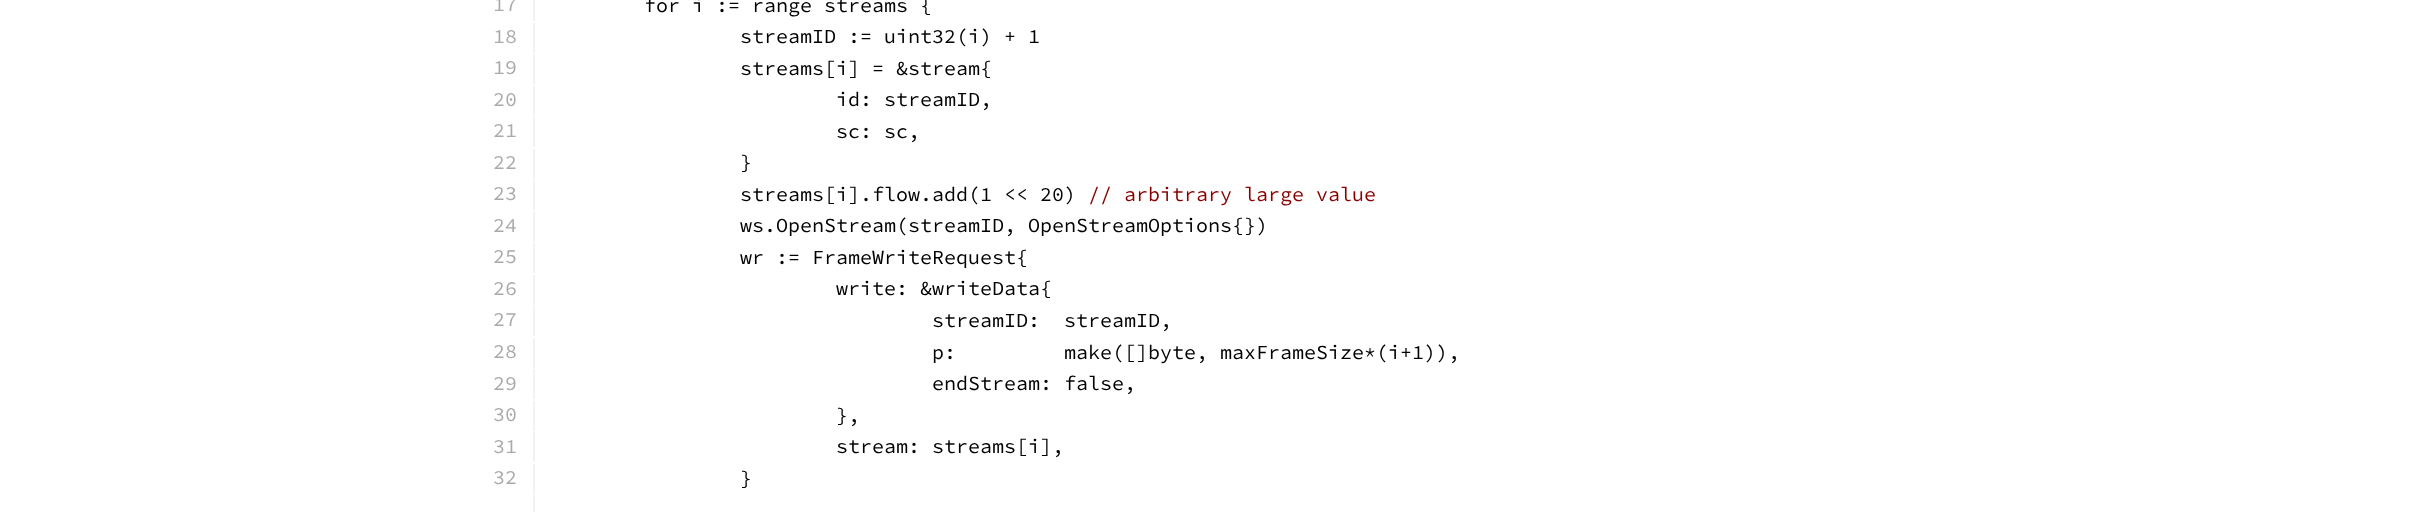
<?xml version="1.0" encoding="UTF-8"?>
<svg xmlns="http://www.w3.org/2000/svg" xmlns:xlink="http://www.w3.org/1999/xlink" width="2416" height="512">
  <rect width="100%" height="100%" fill="#ffffff" />
  <rect x="533" width="2" height="21" fill="#f1f2f3" />
  <rect x="533" y="23" width="2" height="30" fill="#f1f2f3" />
  <rect x="533" y="54" width="2" height="30" fill="#f1f2f3" />
  <rect x="533" y="86" width="2" height="30" fill="#f1f2f3" />
  <rect x="533" y="117" width="2" height="30" fill="#f1f2f3" />
  <rect x="533" y="149" width="2" height="30" fill="#f1f2f3" />
  <rect x="533" y="180" width="2" height="30" fill="#f1f2f3" />
  <rect x="533" y="212" width="2" height="30" fill="#f1f2f3" />
  <rect x="533" y="243" width="2" height="30" fill="#f1f2f3" />
  <rect x="533" y="275" width="2" height="30" fill="#f1f2f3" />
  <rect x="533" y="306" width="2" height="30" fill="#f1f2f3" />
  <rect x="533" y="338" width="2" height="30" fill="#f1f2f3" />
  <rect x="533" y="369" width="2" height="30" fill="#f1f2f3" />
  <rect x="533" y="401" width="2" height="30" fill="#f1f2f3" />
  <rect x="533" y="432" width="2" height="30" fill="#f1f2f3" />
  <rect x="533" y="464" width="2" height="30" fill="#f1f2f3" />
  <rect x="533" y="495" width="2" height="17" fill="#f1f2f3" />
  <text x="493" y="11" style="font-family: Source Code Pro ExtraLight; font-size: 20px; font-weight: 200; fill: #aaaaaa">17</text>
  <text x="644" y="12" style="font-family: Source Code Pro ExtraLight; font-size: 20px; font-weight: 200; fill: #000000">for i := range streams {</text>
  <text x="493" y="43" style="font-family: Source Code Pro ExtraLight; font-size: 20px; font-weight: 200; fill: #aaaaaa">18</text>
  <text x="740" y="43" style="font-family: Source Code Pro ExtraLight; font-size: 20px; font-weight: 200; fill: #000000">streamID := uint32(i) + 1</text>
  <text x="493" y="74" style="font-family: Source Code Pro ExtraLight; font-size: 20px; font-weight: 200; fill: #aaaaaa">19</text>
  <text x="740" y="75" style="font-family: Source Code Pro ExtraLight; font-size: 20px; font-weight: 200; fill: #000000">streams[i] = &amp;stream{</text>
  <text x="493" y="106" style="font-family: Source Code Pro ExtraLight; font-size: 20px; font-weight: 200; fill: #aaaaaa">20</text>
  <text x="836" y="106" style="font-family: Source Code Pro ExtraLight; font-size: 20px; font-weight: 200; fill: #000000">id: streamID,</text>
  <text x="493" y="137" style="font-family: Source Code Pro ExtraLight; font-size: 20px; font-weight: 200; fill: #aaaaaa">21</text>
  <text x="836" y="138" style="font-family: Source Code Pro ExtraLight; font-size: 20px; font-weight: 200; fill: #000000">sc: sc,</text>
  <text x="493" y="169" style="font-family: Source Code Pro ExtraLight; font-size: 20px; font-weight: 200; fill: #aaaaaa">22</text>
  <text x="740" y="169" style="font-family: Source Code Pro ExtraLight; font-size: 20px; font-weight: 200; fill: #000000">}</text>
  <text x="493" y="200" style="font-family: Source Code Pro ExtraLight; font-size: 20px; font-weight: 200; fill: #aaaaaa">23</text>
  <text x="740" y="201" style="font-family: Source Code Pro ExtraLight; font-size: 20px; font-weight: 200; fill: #000000">streams[i].flow.add(1 &lt;&lt; 20)</text>
  <text x="1088" y="201" style="font-family: Source Code Pro ExtraLight; font-size: 20px; font-weight: 200; fill: #880000">// arbitrary large value</text>
  <text x="493" y="232" style="font-family: Source Code Pro ExtraLight; font-size: 20px; font-weight: 200; fill: #aaaaaa">24</text>
  <text x="740" y="232" style="font-family: Source Code Pro ExtraLight; font-size: 20px; font-weight: 200; fill: #000000">ws.OpenStream(streamID, OpenStreamOptions{})</text>
  <text x="493" y="263" style="font-family: Source Code Pro ExtraLight; font-size: 20px; font-weight: 200; fill: #aaaaaa">25</text>
  <text x="740" y="264" style="font-family: Source Code Pro ExtraLight; font-size: 20px; font-weight: 200; fill: #000000">wr := FrameWriteRequest{</text>
  <text x="493" y="295" style="font-family: Source Code Pro ExtraLight; font-size: 20px; font-weight: 200; fill: #aaaaaa">26</text>
  <text x="836" y="295" style="font-family: Source Code Pro ExtraLight; font-size: 20px; font-weight: 200; fill: #000000">write: &amp;writeData{</text>
  <text x="493" y="326" style="font-family: Source Code Pro ExtraLight; font-size: 20px; font-weight: 200; fill: #aaaaaa">27</text>
  <text x="932" y="327" style="font-family: Source Code Pro ExtraLight; font-size: 20px; font-weight: 200; fill: #000000" xml:space="preserve">streamID:  streamID,</text>
  <text x="493" y="358" style="font-family: Source Code Pro ExtraLight; font-size: 20px; font-weight: 200; fill: #aaaaaa">28</text>
  <text x="932" y="359" style="font-family: Source Code Pro ExtraLight; font-size: 20px; font-weight: 200; fill: #000000" xml:space="preserve">p:         make([]byte, maxFrameSize*(i+1)),</text>
  <text x="493" y="390" style="font-family: Source Code Pro ExtraLight; font-size: 20px; font-weight: 200; fill: #aaaaaa">29</text>
  <text x="932" y="390" style="font-family: Source Code Pro ExtraLight; font-size: 20px; font-weight: 200; fill: #000000">endStream: false,</text>
  <text x="493" y="421" style="font-family: Source Code Pro ExtraLight; font-size: 20px; font-weight: 200; fill: #aaaaaa">30</text>
  <text x="836" y="422" style="font-family: Source Code Pro ExtraLight; font-size: 20px; font-weight: 200; fill: #000000">},</text>
  <text x="493" y="453" style="font-family: Source Code Pro ExtraLight; font-size: 20px; font-weight: 200; fill: #aaaaaa">31</text>
  <text x="836" y="453" style="font-family: Source Code Pro ExtraLight; font-size: 20px; font-weight: 200; fill: #000000">stream: streams[i],</text>
  <text x="493" y="484" style="font-family: Source Code Pro ExtraLight; font-size: 20px; font-weight: 200; fill: #aaaaaa">32</text>
  <text x="740" y="485" style="font-family: Source Code Pro ExtraLight; font-size: 20px; font-weight: 200; fill: #000000">}</text>
</svg>
